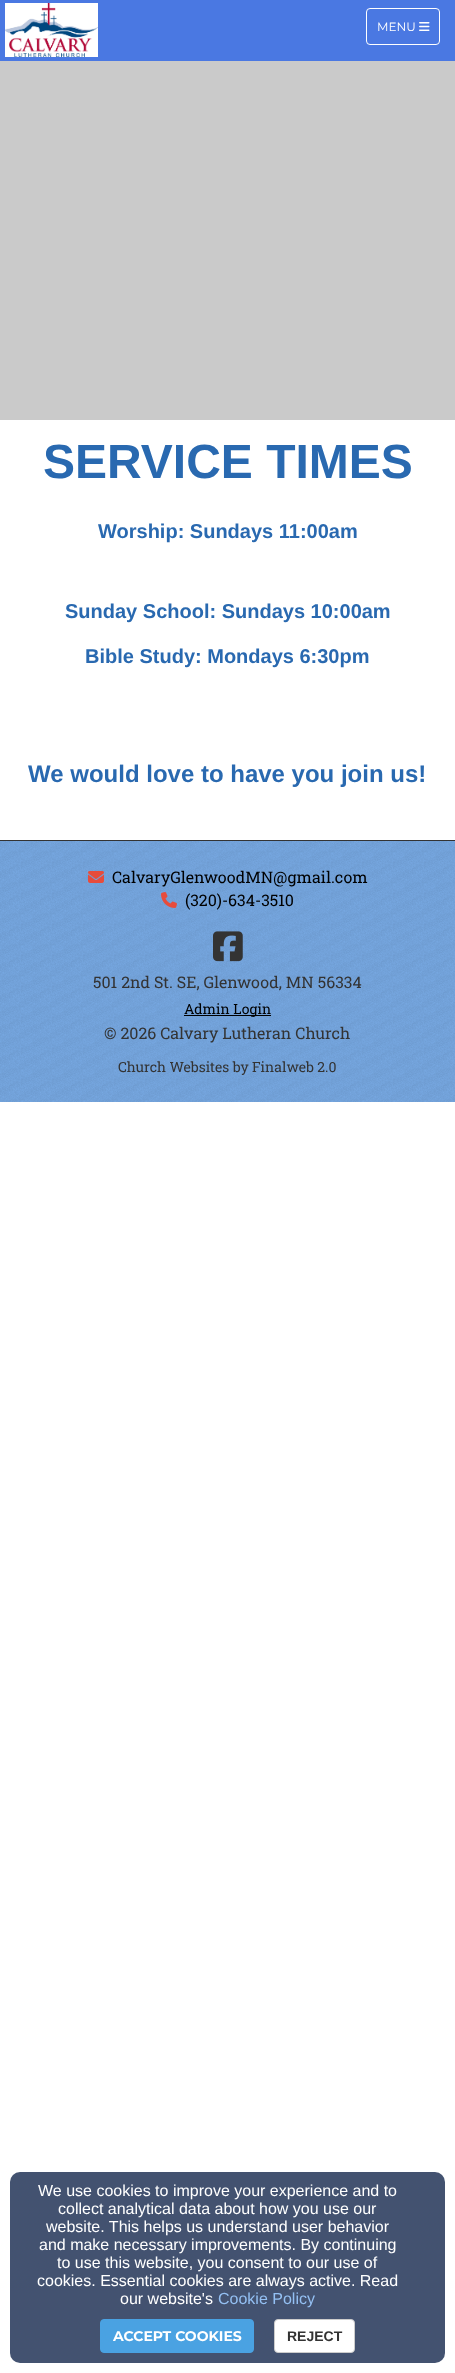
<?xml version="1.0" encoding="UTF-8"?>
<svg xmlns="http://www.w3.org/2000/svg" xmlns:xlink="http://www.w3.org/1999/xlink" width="455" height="2373">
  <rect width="100%" height="100%" fill="#ffffff" />
  <rect width="455" height="61" fill="#4a78e2" />
  <image x="5" y="3" width="93" height="54" xlink:href="image1.png" />
  <rect x="366.5" y="8.5" width="73" height="36" rx="3.5" fill="none" stroke="#ffffff" />
  <image x="419" y="22" width="11" height="9" xlink:href="image2.png" />
  <rect y="61" width="455" height="359" fill="#cacaca" />
  <rect y="841" width="455" height="261" fill="#7eb2ef" />
  <image x="0" y="841" width="455" height="261" xlink:href="image3.png" />
  <rect y="840" width="455" height="1" fill="#333333" />
  <image x="88" y="871" width="16" height="12" xlink:href="image4.png" />
  <image x="161" y="892" width="16" height="16" xlink:href="image5.png" />
  <image x="213" y="931" width="30" height="31" xlink:href="image6.png" />
  <rect x="184" y="1015" width="87" height="1" fill="#000000" />
  <rect x="10" y="2172" width="435" height="191" rx="10" fill="#435270" />
  <rect x="100.5" y="2319.5" width="153" height="33" rx="3.5" fill="#4aa2e2" stroke="#4aa2e2" />
  <rect x="274.5" y="2319.5" width="80" height="33" rx="3.5" fill="#ffffff" stroke="#cccccc" />
  <text x="377" y="31" style="font-family: Montserrat; font-size: 12px; fill: #ffffff">MENU</text>
  <text x="43" y="478" style="font-family: Liberation Sans; font-size: 48px; font-weight: bold; fill: #2969b0">SERVICE TIMES</text>
  <text x="98" y="538" style="font-family: Liberation Sans; font-size: 20px; font-weight: bold; fill: #2969b0">Worship: Sundays 11:00am</text>
  <text x="65" y="618" style="font-family: Liberation Sans; font-size: 20px; font-weight: bold; fill: #2969b0">Sunday School: Sundays 10:00am</text>
  <text x="85" y="663" style="font-family: Liberation Sans; font-size: 20px; font-weight: bold; fill: #2969b0">Bible Study: Mondays 6:30pm</text>
  <text x="28" y="782" style="font-family: Liberation Sans; font-size: 24px; font-weight: bold; fill: #2969b0">We would love to have you join us!</text>
  <text x="112" y="883" style="font-family: Roboto Slab; font-size: 16px; fill: #000000">CalvaryGlenwoodMN@gmail.com</text>
  <text x="185" y="906" style="font-family: Roboto Slab; font-size: 16px; fill: #000000">(320)-634-3510</text>
  <text x="93" y="988" style="font-family: Roboto Slab; font-size: 16px; fill: #333333">501 2nd St. SE, Glenwood, MN 56334</text>
  <text x="184" y="1014" style="font-family: Roboto Slab; font-size: 14px; fill: #000000">Admin Login</text>
  <text x="104" y="1039" style="font-family: Roboto Slab; font-size: 16px; fill: #333333">© 2026 Calvary Lutheran Church</text>
  <text x="118" y="1072" style="font-family: Roboto Slab; font-size: 14px; fill: #333333">Church Websites by Finalweb 2.0</text>
  <text x="38" y="2196" style="font-family: Liberation Sans; font-size: 16px; fill: #ffffff">We use cookies to improve your experience and to</text>
  <text x="58" y="2214" style="font-family: Liberation Sans; font-size: 16px; fill: #ffffff">collect analytical data about how you use our</text>
  <text x="46" y="2232" style="font-family: Liberation Sans; font-size: 16px; fill: #ffffff">website. This helps us understand user behavior</text>
  <text x="39" y="2250" style="font-family: Liberation Sans; font-size: 16px; fill: #ffffff">and make necessary improvements. By continuing</text>
  <text x="57" y="2268" style="font-family: Liberation Sans; font-size: 16px; fill: #ffffff">to use this website, you consent to our use of</text>
  <text x="37" y="2286" style="font-family: Liberation Sans; font-size: 16px; fill: #ffffff">cookies. Essential cookies are always active. Read</text>
  <text x="120" y="2304" style="font-family: Liberation Sans; font-size: 16px; fill: #ffffff">our website's</text>
  <text x="218" y="2304" style="font-family: Liberation Sans; font-size: 16px; fill: #94c0f3">Cookie Policy</text>
  <text x="113" y="2341" style="font-family: Montserrat; font-size: 14px; font-weight: bold; fill: #ffffff">ACCEPT COOKIES</text>
  <text x="287" y="2341" style="font-family: Liberation Sans; font-size: 14px; font-weight: bold; fill: #333333">REJECT</text>
</svg>
